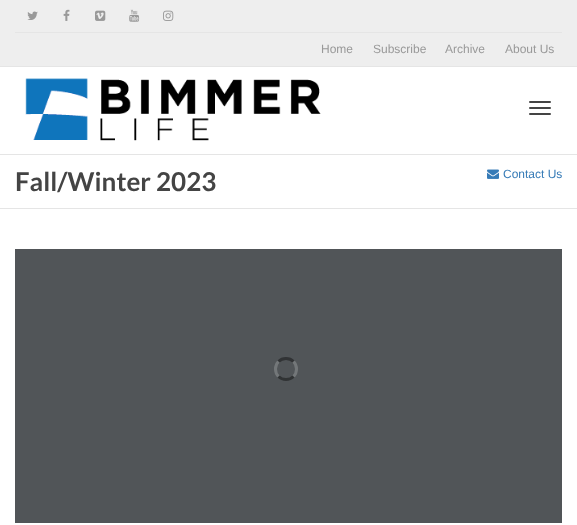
<?xml version="1.0" encoding="UTF-8"?>
<svg xmlns="http://www.w3.org/2000/svg" xmlns:xlink="http://www.w3.org/1999/xlink" width="577" height="525">
  <rect width="100%" height="100%" fill="#ffffff" />
  <rect width="577" height="66" fill="#eeeeee" />
  <rect y="66" width="577" height="1" fill="#e5e5e5" />
  <rect x="15" y="32" width="547" height="1" fill="#e5e5e5" />
  <image x="27" y="11" width="11" height="9" xlink:href="image1.png" />
  <image x="63" y="9" width="7" height="12" xlink:href="image2.png" />
  <image x="95" y="10" width="11" height="11" xlink:href="image3.png" />
  <image x="129" y="9" width="11" height="13" xlink:href="image4.png" />
  <image x="163" y="10" width="11" height="11" xlink:href="image5.png" />
  <rect y="154" width="577" height="1" fill="#e5e5e5" />
  <image x="25" y="78" width="296" height="63" xlink:href="image6.png" />
  <rect x="529" y="101" width="22" height="2" rx="1" fill="#444444" />
  <rect x="529" y="107" width="22" height="2" rx="1" fill="#444444" />
  <rect x="529" y="113" width="22" height="2" rx="1" fill="#444444" />
  <rect y="208" width="577" height="1" fill="#e5e5e5" />
  <image x="487" y="169" width="12" height="10" xlink:href="image7.png" />
  <rect x="15" y="249" width="547" height="274" fill="#515558" />
  <path d="M 278.5 361.5 c 4 -4 11 -4 15 0" fill="none" stroke="#313335" stroke-width="3" />
  <path d="M 293.5 361.5 c 4 4 4 11 0 15" fill="none" stroke="#ffffff" stroke-opacity="0.2" stroke-width="3" />
  <path d="M 293.5 376.5 c -4 4 -11 4 -15 0" fill="none" stroke="#000000" stroke-opacity="0.4" stroke-width="3" />
  <path d="M 278.5 376.5 c -4 -4 -4 -11 0 -15" fill="none" stroke="#ffffff" stroke-opacity="0.2" stroke-width="3" />
  <text x="321" y="53" style="font-family: Liberation Sans; font-size: 12px; fill: #999999">Home</text>
  <text x="373" y="53" style="font-family: Liberation Sans; font-size: 12px; fill: #999999">Subscribe</text>
  <text x="445" y="53" style="font-family: Liberation Sans; font-size: 12px; fill: #999999">Archive</text>
  <text x="505" y="53" style="font-family: Liberation Sans; font-size: 12px; fill: #999999">About Us</text>
  <text x="15" y="191" style="font-family: Lato; font-size: 26px; font-weight: bold; fill: #444444">Fall/Winter 2023</text>
  <text x="503" y="178" style="font-family: Liberation Sans; font-size: 12px; fill: #367bb7">Contact Us</text>
</svg>
